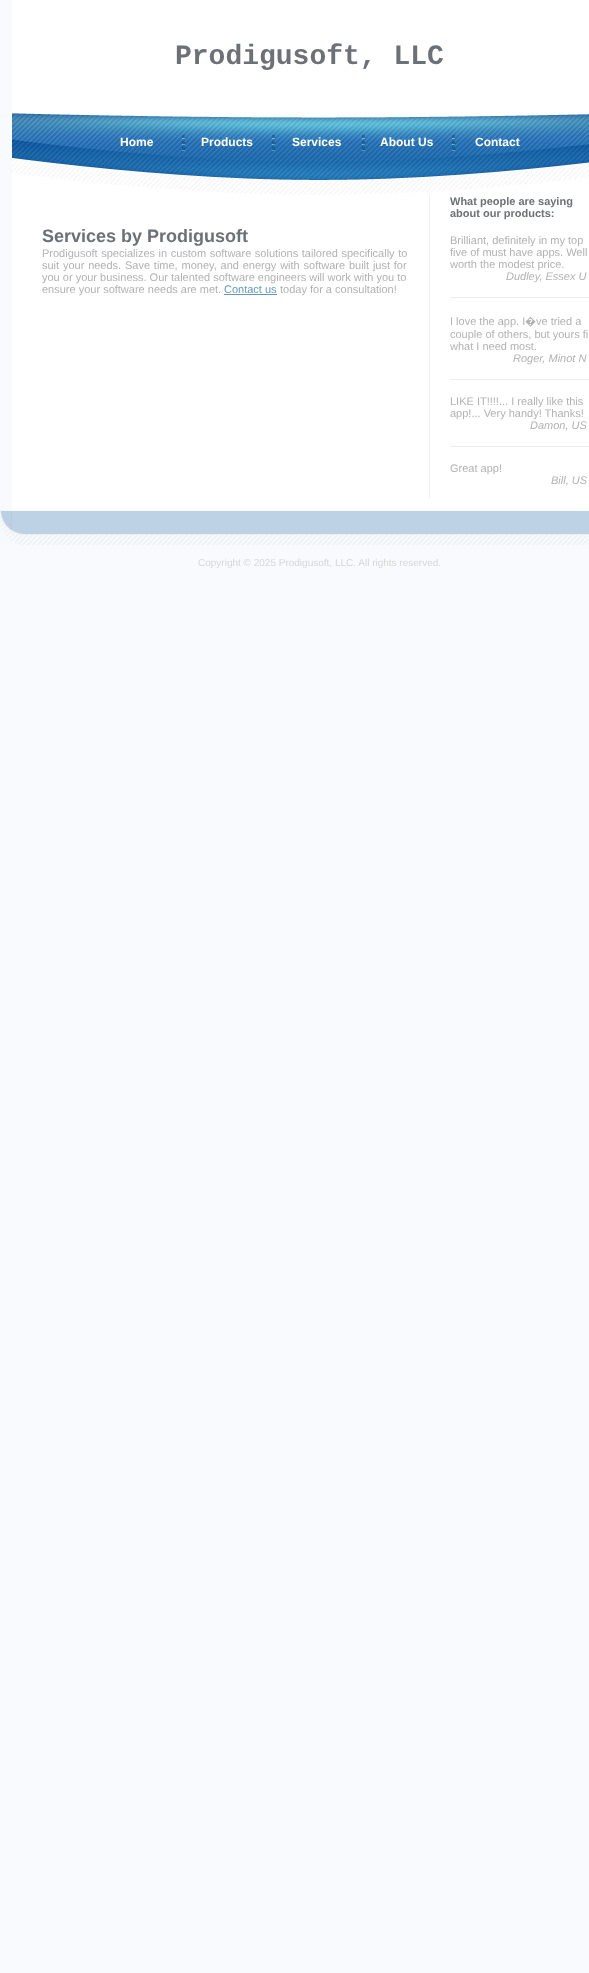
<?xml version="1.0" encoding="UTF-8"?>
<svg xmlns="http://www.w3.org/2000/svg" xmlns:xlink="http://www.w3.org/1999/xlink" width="589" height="1973">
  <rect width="100%" height="100%" fill="#f8fafe" />
  <rect x="12" width="577" height="510" fill="#ffffff" />
  <image x="12" y="113" width="80" height="69" xlink:href="image1.png" />
  <image x="92" y="113" width="90" height="76" xlink:href="image2.png" />
  <image x="182" y="113" width="90" height="81" xlink:href="image3.png" />
  <image x="272" y="113" width="90" height="82" xlink:href="image4.png" />
  <image x="362" y="113" width="90" height="81" xlink:href="image5.png" />
  <image x="452" y="113" width="90" height="77" xlink:href="image6.png" />
  <image x="542" y="113" width="47" height="69" xlink:href="image7.png" />
  <rect x="224" y="294" width="53" height="1" fill="#6399bf" />
  <rect x="429" y="195" width="1" height="303" fill="#efeeef" />
  <rect x="450" y="297" width="139" height="1" fill="#efeeef" />
  <rect x="450" y="379" width="139" height="1" fill="#efeeef" />
  <rect x="450" y="446" width="139" height="1" fill="#efeeef" />
  <image x="0" y="510" width="589" height="35" xlink:href="image8.png" />
  <text x="175" y="64" style="font-family: Liberation Mono; font-size: 28px; font-weight: bold; fill: #6c7176">Prodigusoft, LLC</text>
  <text x="120" y="146" style="font-family: Liberation Sans; font-size: 12px; font-weight: bold; fill: #ffffff">Home</text>
  <text x="201" y="146" style="font-family: Liberation Sans; font-size: 12px; font-weight: bold; fill: #ffffff">Products</text>
  <text x="292" y="146" style="font-family: Liberation Sans; font-size: 12px; font-weight: bold; fill: #ffffff">Services</text>
  <text x="380" y="146" style="font-family: Liberation Sans; font-size: 12px; font-weight: bold; fill: #ffffff">About Us</text>
  <text x="475" y="146" style="font-family: Liberation Sans; font-size: 12px; font-weight: bold; fill: #ffffff">Contact</text>
  <text x="42" y="242" style="font-family: Liberation Sans; font-size: 18px; font-weight: bold; fill: #6c7176">Services by Prodigusoft</text>
  <text x="42" y="257" word-spacing="0.5" style="font-family: Liberation Sans; font-size: 11px; fill: #b2b2b2">Prodigusoft specializes in custom software solutions tailored specifically to</text>
  <text x="42" y="269" word-spacing="0.75" style="font-family: Liberation Sans; font-size: 11px; fill: #b2b2b2">suit your needs. Save time, money, and energy with software built just for</text>
  <text x="42" y="281" style="font-family: Liberation Sans; font-size: 11px; fill: #b2b2b2">you or your business. Our talented software engineers will work with you to</text>
  <text x="42" y="293" style="font-family: Liberation Sans; font-size: 11px; fill: #b2b2b2">ensure your software needs are met.</text>
  <text x="224" y="293" style="font-family: Liberation Sans; font-size: 11px; fill: #6399bf">Contact us</text>
  <text x="280" y="293" style="font-family: Liberation Sans; font-size: 11px; fill: #b2b2b2">today for a consultation!</text>
  <text x="450" y="205" style="font-family: Liberation Sans; font-size: 11px; font-weight: bold; fill: #6c7176">What people are saying</text>
  <text x="450" y="217" style="font-family: Liberation Sans; font-size: 11px; font-weight: bold; fill: #6c7176">about our products:</text>
  <text x="450" y="244" style="font-family: Liberation Sans; font-size: 11px; fill: #b2b2b2">Brilliant, definitely in my top</text>
  <text x="450" y="256" style="font-family: Liberation Sans; font-size: 11px; fill: #b2b2b2">five of must have apps. Well</text>
  <text x="450" y="268" style="font-family: Liberation Sans; font-size: 11px; fill: #b2b2b2">worth the modest price.</text>
  <text x="506" y="280" style="font-family: Liberation Sans; font-size: 11px; font-style: italic; fill: #b2b2b2">Dudley, Essex U</text>
  <text x="450" y="325" style="font-family: Liberation Sans; font-size: 11px; fill: #b2b2b2">I love the app. I</text>
  <text x="525" y="325" style="font-family: Noto Sans; font-size: 11px; fill: #b2b2b2">�</text>
  <text x="536" y="325" style="font-family: Liberation Sans; font-size: 11px; fill: #b2b2b2">ve tried a</text>
  <text x="450" y="338" style="font-family: Liberation Sans; font-size: 11px; fill: #b2b2b2">couple of others, but yours fi</text>
  <text x="450" y="350" style="font-family: Liberation Sans; font-size: 11px; fill: #b2b2b2">what I need most.</text>
  <text x="513" y="362" style="font-family: Liberation Sans; font-size: 11px; font-style: italic; fill: #b2b2b2">Roger, Minot N</text>
  <text x="450" y="405" style="font-family: Liberation Sans; font-size: 11px; fill: #b2b2b2">LIKE IT!!!!... I really like this</text>
  <text x="450" y="417" style="font-family: Liberation Sans; font-size: 11px; fill: #b2b2b2">app!... Very handy! Thanks!</text>
  <text x="530" y="429" style="font-family: Liberation Sans; font-size: 11px; font-style: italic; fill: #b2b2b2">Damon, US</text>
  <text x="450" y="472" style="font-family: Liberation Sans; font-size: 11px; fill: #b2b2b2">Great app!</text>
  <text x="551" y="484" style="font-family: Liberation Sans; font-size: 11px; font-style: italic; fill: #b2b2b2">Bill, US</text>
  <text x="198" y="566" style="font-family: Liberation Sans; font-size: 10px; fill: #d6d7d4">Copyright © 2025 Prodigusoft, LLC. All rights reserved.</text>
</svg>
